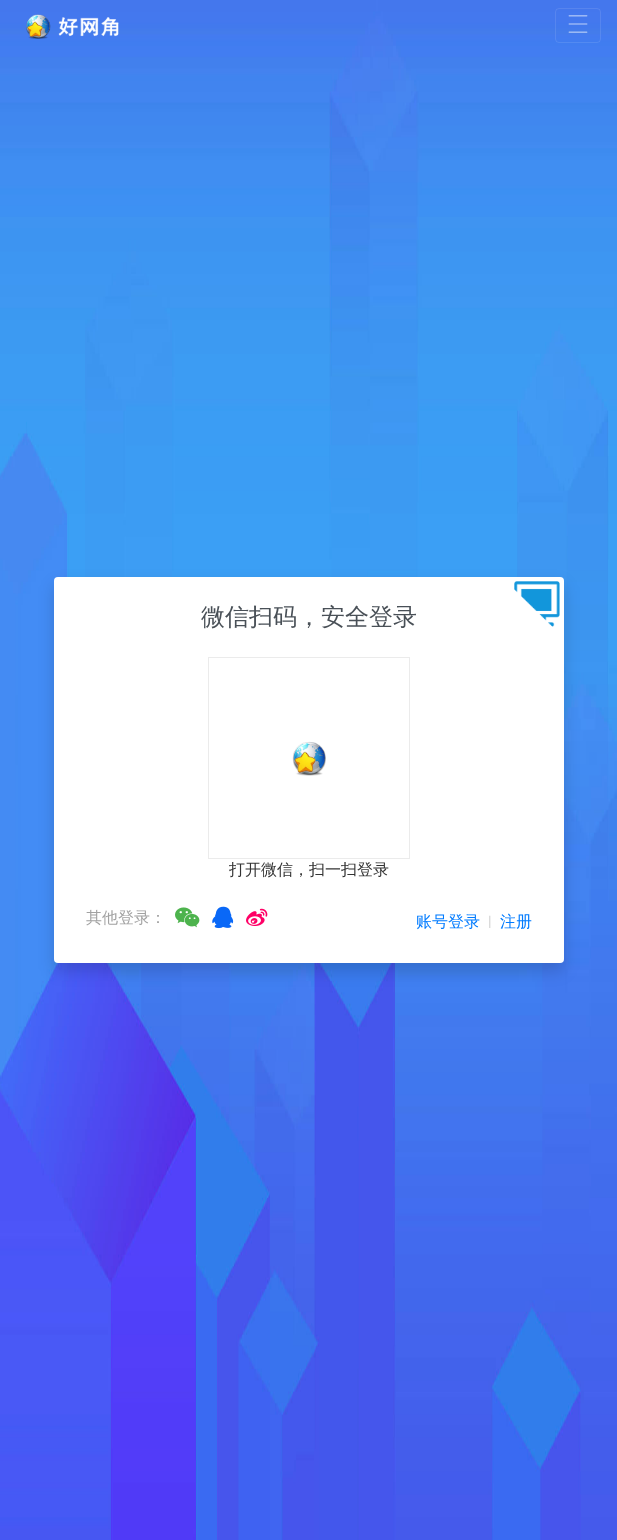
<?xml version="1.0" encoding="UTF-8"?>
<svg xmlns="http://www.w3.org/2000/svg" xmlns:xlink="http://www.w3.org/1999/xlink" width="617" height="1540">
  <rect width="100%" height="100%" fill="#ffffff" />
  <image x="0" y="0" width="617" height="1540" xlink:href="image1.png" />
  <image x="26" y="14" width="93" height="25" xlink:href="image2.png" />
  <rect x="555.5" y="8.5" width="45" height="34" rx="3.5" fill="none" stroke="#ffffff" stroke-opacity="0.1" />
  <image x="568" y="15" width="20" height="18" xlink:href="image3.png" />
  <rect x="54" y="585" width="510" height="386" rx="4" fill="#000000" fill-opacity="0.15" filter="blur(8px)" />
  <rect x="54" y="577" width="510" height="386" rx="4" fill="#ffffff" />
  <rect x="208.5" y="657.5" width="201" height="201" fill="none" stroke="#ebebeb" />
  <image x="292" y="741" width="34" height="35" xlink:href="image4.png" />
  <image x="514" y="581" width="46" height="46" xlink:href="image5.png" />
  <image x="175" y="907" width="25" height="21" xlink:href="image6.png" />
  <image x="212" y="906" width="22" height="23" xlink:href="image7.png" />
  <image x="246" y="908" width="22" height="18" xlink:href="image8.png" />
  <text x="201" y="625" style="font-family: WenQuanYi Zen Hei; font-size: 24px; font-weight: 500; fill: #495057">微信扫码，安全登录</text>
  <text x="229" y="875" style="font-family: WenQuanYi Zen Hei; font-size: 16px; font-weight: 500; fill: #333333">打开微信，扫一扫登录</text>
  <text x="86" y="923" style="font-family: WenQuanYi Zen Hei; font-size: 16px; font-weight: 500; fill: #a2a2a2">其他登录：</text>
  <text x="416" y="927" style="font-family: WenQuanYi Zen Hei; font-size: 16px; font-weight: 500; fill: #007bff">账号登录</text>
  <text x="488" y="925" style="font-family: Josefin Sans; font-size: 13px; fill: #d3d3d3">|</text>
  <text x="500" y="927" style="font-family: WenQuanYi Zen Hei; font-size: 16px; font-weight: 500; fill: #007bff">注册</text>
</svg>
